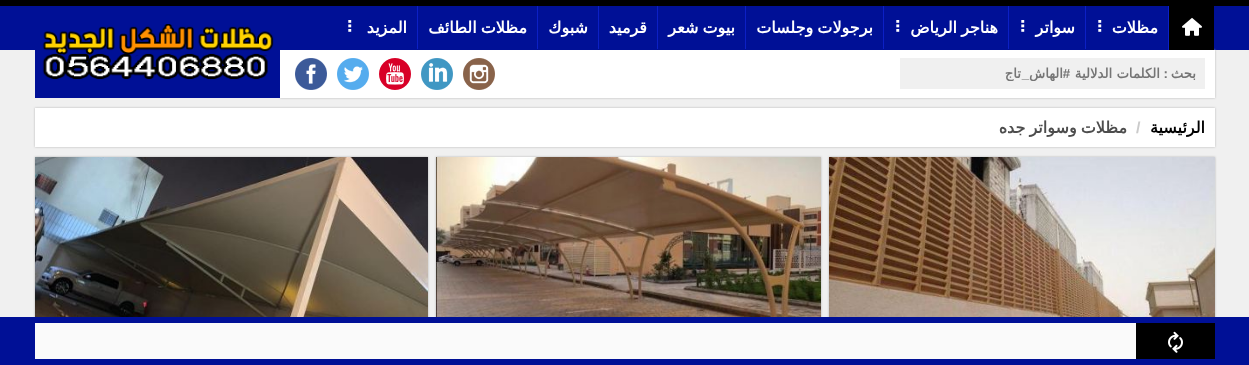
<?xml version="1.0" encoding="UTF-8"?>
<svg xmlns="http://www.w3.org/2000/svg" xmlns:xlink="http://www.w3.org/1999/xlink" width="1249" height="365">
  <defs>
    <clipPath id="clip1"><rect x="908" y="66" width="289" height="15" /></clipPath>
  </defs>
  <rect width="100%" height="100%" fill="#f0f0f0" />
  <rect y="6" width="1249" height="44" fill="#001096" />
  <rect width="1249" height="6" fill="#000000" />
  <rect x="280" y="50" width="935" height="48" fill="#b5b5b5" filter="blur(1px)" />
  <rect x="280" y="48" width="888" height="2" fill="#001096" />
  <rect x="1169" y="6" width="45" height="44" fill="#000000" />
  <rect x="1168" y="6" width="1" height="44" fill="#0c20c5" />
  <image x="1182" y="17" width="20" height="19" xlink:href="image1.png" />
  <rect x="1085" y="6" width="1" height="43" fill="#0c20c5" />
  <rect x="1008" y="6" width="1" height="43" fill="#0c20c5" />
  <rect x="883" y="6" width="1" height="43" fill="#0c20c5" />
  <rect x="745" y="6" width="1" height="43" fill="#0c20c5" />
  <rect x="657" y="6" width="1" height="43" fill="#0c20c5" />
  <rect x="598" y="6" width="1" height="43" fill="#0c20c5" />
  <rect x="537" y="6" width="1" height="43" fill="#0c20c5" />
  <rect x="417" y="6" width="1" height="43" fill="#0c20c5" />
  <rect x="35" y="48" width="245" height="50" fill="#001096" />
  <image x="42" y="24" width="232" height="56" xlink:href="image2.png" />
  <rect x="280" y="50" width="935" height="48" fill="#ffffff" />
  <rect x="900" y="58" width="305" height="31" fill="#f0f0f0" />
  <image x="463" y="58" width="32" height="32" xlink:href="image3.png" />
  <image x="421" y="58" width="32" height="32" xlink:href="image4.png" />
  <image x="379" y="58" width="32" height="32" xlink:href="image5.png" />
  <image x="337" y="58" width="32" height="32" xlink:href="image6.png" />
  <image x="295" y="58" width="32" height="32" xlink:href="image7.png" />
  <rect x="35" y="108" width="1180" height="39" fill="#b5b5b5" filter="blur(1px)" />
  <rect x="35" y="108" width="1180" height="39" fill="#ffffff" />
  <rect x="829" y="157" width="386" height="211" fill="#b5b5b5" filter="blur(1px)" />
  <image x="829" y="157" width="386" height="160" xlink:href="image8.png" />
  <rect x="436" y="157" width="385" height="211" fill="#b5b5b5" filter="blur(1px)" />
  <image x="436" y="157" width="385" height="160" xlink:href="image9.png" />
  <rect x="35" y="157" width="393" height="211" fill="#b5b5b5" filter="blur(1px)" />
  <image x="35" y="157" width="393" height="160" xlink:href="image10.png" />
  <rect y="317" width="1249" height="48" fill="#001096" />
  <rect x="1136" y="323" width="79" height="36" fill="#000000" />
  <image x="1168" y="331" width="15" height="22" xlink:href="image11.png" />
  <rect x="35" y="323" width="1101" height="36" fill="#fafafa" />
  <text x="1158" y="33" style="font-family: DejaVu Sans; font-size: 16px; font-weight: bold; direction: rtl; fill: #ffffff">مظلات</text>
  <text x="1096" y="33" style="font-family: DejaVu Sans; font-size: 16px; font-weight: bold; fill: #ffffff">⠇</text>
  <text x="1075" y="33" style="font-family: DejaVu Sans; font-size: 16px; font-weight: bold; direction: rtl; fill: #ffffff">سواتر</text>
  <text x="1019" y="33" style="font-family: DejaVu Sans; font-size: 16px; font-weight: bold; fill: #ffffff">⠇</text>
  <text x="998" y="33" word-spacing="-1" style="font-family: DejaVu Sans; font-size: 16px; font-weight: bold; direction: rtl; fill: #ffffff">هناجر الرياض</text>
  <text x="894" y="33" style="font-family: DejaVu Sans; font-size: 16px; font-weight: bold; fill: #ffffff">⠇</text>
  <text x="873" y="33" word-spacing="-1" style="font-family: DejaVu Sans; font-size: 16px; font-weight: bold; direction: rtl; fill: #ffffff">برجولات وجلسات</text>
  <text x="735" y="33" word-spacing="-1" style="font-family: DejaVu Sans; font-size: 16px; font-weight: bold; direction: rtl; fill: #ffffff">بيوت شعر</text>
  <text x="647" y="33" style="font-family: DejaVu Sans; font-size: 16px; font-weight: bold; direction: rtl; fill: #ffffff">قرميد</text>
  <text x="588" y="33" style="font-family: DejaVu Sans; font-size: 16px; font-weight: bold; direction: rtl; fill: #ffffff">شبوك</text>
  <text x="527" y="33" word-spacing="-1" style="font-family: DejaVu Sans; font-size: 16px; font-weight: bold; direction: rtl; fill: #ffffff">مظلات الطائف</text>
  <text x="407" y="33" style="font-family: DejaVu Sans; font-size: 16px; font-weight: bold; direction: rtl; fill: #ffffff">المزيد</text>
  <text x="346" y="33" style="font-family: DejaVu Sans; font-size: 16px; font-weight: bold; fill: #ffffff">⠇</text>
  <text x="1196" y="78" style="font-family: DejaVu Sans; font-size: 13.25px; font-weight: bold; direction: rtl; fill: #757575">بحث</text>
  <text x="1168" y="78" style="font-family: Liberation Sans; font-size: 13.25px; font-weight: bold; direction: rtl; fill: #757575">:</text>
  <text x="1160" y="78" style="font-family: DejaVu Sans; font-size: 13.25px; font-weight: bold; direction: rtl; fill: #757575">الكلمات الدلالية</text>
  <text x="1070" y="78" style="font-family: Liberation Sans; font-size: 13.25px; font-weight: bold; direction: rtl; fill: #757575">#</text>
  <g clip-path="url(#clip1)">
    <text x="1063" y="78" style="font-family: DejaVu Sans; font-size: 13.25px; font-weight: bold; direction: rtl; fill: #757575">الهاش</text>
  </g>
  <text x="1029" y="78" style="font-family: Liberation Sans; font-size: 13.25px; font-weight: bold; direction: rtl; fill: #757575">_</text>
  <g clip-path="url(#clip1)">
    <text x="1021" y="78" style="font-family: DejaVu Sans; font-size: 13.25px; font-weight: bold; direction: rtl; fill: #757575">تاج</text>
  </g>
  <text x="1205" y="133" style="font-family: DejaVu Sans; font-size: 16px; font-weight: bold; direction: rtl; fill: #000000">الرئيسية</text>
  <text x="1136" y="133" style="font-family: Liberation Sans; font-size: 16px; font-weight: bold; fill: #cbcbcb">/</text>
  <text x="1127" y="133" word-spacing="-1" style="font-family: DejaVu Sans; font-size: 16px; font-weight: bold; direction: rtl; fill: #4d4d4d">مظلات وسواتر جده</text>
</svg>
